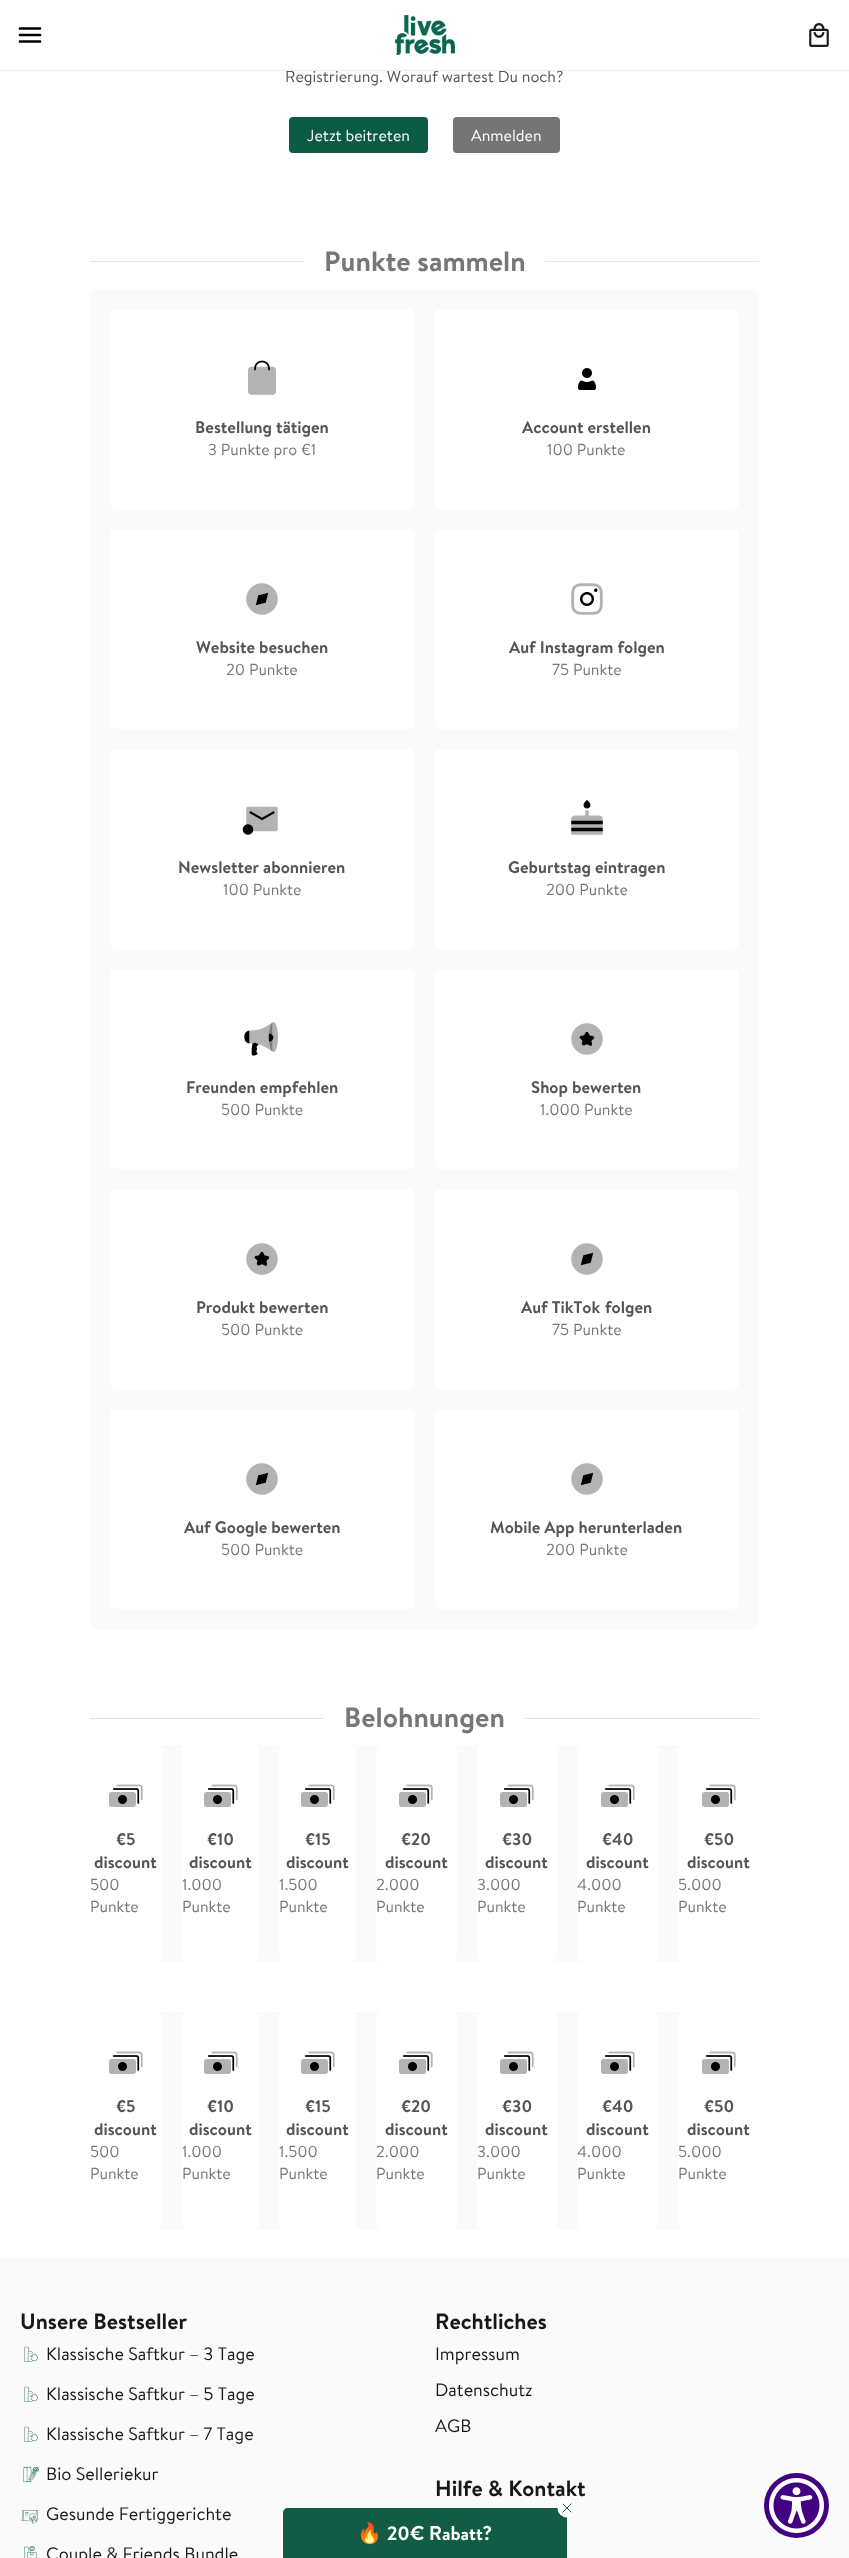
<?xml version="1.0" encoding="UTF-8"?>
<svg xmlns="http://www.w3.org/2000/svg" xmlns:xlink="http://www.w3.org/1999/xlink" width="849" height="2558">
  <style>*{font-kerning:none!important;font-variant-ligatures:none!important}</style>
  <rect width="100%" height="100%" fill="#ffffff" />
  <path d="M 20 28.5 h 20 m -20 6.5 h 20 m -20 6.5 h 20" fill="none" stroke="#000000" stroke-width="2.7" stroke-linecap="round" stroke-linejoin="round" />
  <image x="395" y="15" width="60" height="40" xlink:href="image1.png" />
  <image x="809" y="23" width="20" height="24" xlink:href="image2.png" />
  <rect x="289" y="117" width="139" height="36" rx="4" fill="#0c5c45" />
  <rect x="453" y="117" width="107" height="36" rx="4" fill="#757575" />
  <rect x="90" y="261" width="214" height="1" fill="#e3e3e3" />
  <rect x="545" y="261" width="214" height="1" fill="#e3e3e3" />
  <rect x="90" y="289" width="669" height="1340" rx="6" fill="#fafafa" />
  <rect x="110" y="309" width="305" height="200" rx="6" fill="#ffffff" />
  <image x="248" y="360" width="28" height="35" xlink:href="image3.png" />
  <rect x="435" y="309" width="304" height="200" rx="6" fill="#ffffff" />
  <image x="578" y="368" width="18" height="22" xlink:href="image4.png" />
  <rect x="110" y="529" width="305" height="200" rx="6" fill="#ffffff" />
  <image x="246" y="583" width="32" height="32" xlink:href="image5.png" />
  <rect x="435" y="529" width="304" height="200" rx="6" fill="#ffffff" />
  <image x="571" y="583" width="32" height="32" xlink:href="image6.png" />
  <rect x="110" y="749" width="305" height="200" rx="6" fill="#ffffff" />
  <image x="242" y="806" width="36" height="29" xlink:href="image7.png" />
  <rect x="435" y="749" width="304" height="200" rx="6" fill="#ffffff" />
  <image x="571" y="799" width="32" height="36" xlink:href="image8.png" />
  <rect x="110" y="969" width="305" height="200" rx="6" fill="#ffffff" />
  <image x="244" y="1022" width="34" height="34" xlink:href="image9.png" />
  <rect x="435" y="969" width="304" height="200" rx="6" fill="#ffffff" />
  <image x="571" y="1023" width="32" height="32" xlink:href="image10.png" />
  <rect x="110" y="1189" width="305" height="200" rx="6" fill="#ffffff" />
  <image x="246" y="1243" width="32" height="32" xlink:href="image10.png" />
  <rect x="435" y="1189" width="304" height="200" rx="6" fill="#ffffff" />
  <image x="571" y="1243" width="32" height="32" xlink:href="image5.png" />
  <rect x="110" y="1409" width="305" height="200" rx="6" fill="#ffffff" />
  <image x="246" y="1463" width="32" height="32" xlink:href="image5.png" />
  <rect x="435" y="1409" width="304" height="200" rx="6" fill="#ffffff" />
  <image x="571" y="1463" width="32" height="32" xlink:href="image5.png" />
  <rect x="90" y="1718" width="234" height="1" fill="#e3e3e3" />
  <rect x="525" y="1718" width="234" height="1" fill="#e3e3e3" />
  <rect x="90" y="1745" width="669" height="217" rx="6" fill="#fafafa" />
  <rect x="90" y="1745" width="72" height="217" rx="6" fill="#ffffff" />
  <image x="109" y="1784" width="34" height="23" xlink:href="image11.png" />
  <rect x="182" y="1745" width="77" height="217" rx="6" fill="#ffffff" />
  <image x="204" y="1784" width="34" height="23" xlink:href="image11.png" />
  <rect x="279" y="1745" width="77" height="217" rx="6" fill="#ffffff" />
  <image x="301" y="1784" width="34" height="23" xlink:href="image11.png" />
  <rect x="376" y="1745" width="81" height="217" rx="6" fill="#ffffff" />
  <image x="399" y="1784" width="34" height="23" xlink:href="image11.png" />
  <rect x="477" y="1745" width="80" height="217" rx="6" fill="#ffffff" />
  <image x="500" y="1784" width="34" height="23" xlink:href="image11.png" />
  <rect x="577" y="1745" width="81" height="217" rx="6" fill="#ffffff" />
  <image x="601" y="1784" width="34" height="23" xlink:href="image11.png" />
  <rect x="678" y="1745" width="81" height="217" rx="6" fill="#ffffff" />
  <image x="702" y="1784" width="34" height="23" xlink:href="image11.png" />
  <rect x="90" y="2012" width="669" height="217" rx="6" fill="#fafafa" />
  <rect x="90" y="2012" width="72" height="217" rx="6" fill="#ffffff" />
  <image x="109" y="2051" width="34" height="23" xlink:href="image11.png" />
  <rect x="182" y="2012" width="77" height="217" rx="6" fill="#ffffff" />
  <image x="204" y="2051" width="34" height="23" xlink:href="image11.png" />
  <rect x="279" y="2012" width="77" height="217" rx="6" fill="#ffffff" />
  <image x="301" y="2051" width="34" height="23" xlink:href="image11.png" />
  <rect x="376" y="2012" width="81" height="217" rx="6" fill="#ffffff" />
  <image x="399" y="2051" width="34" height="23" xlink:href="image11.png" />
  <rect x="477" y="2012" width="80" height="217" rx="6" fill="#ffffff" />
  <image x="500" y="2051" width="34" height="23" xlink:href="image11.png" />
  <rect x="577" y="2012" width="81" height="217" rx="6" fill="#ffffff" />
  <image x="601" y="2051" width="34" height="23" xlink:href="image11.png" />
  <rect x="678" y="2012" width="81" height="217" rx="6" fill="#ffffff" />
  <image x="702" y="2051" width="34" height="23" xlink:href="image11.png" />
  <rect y="2257" width="849" height="301" fill="#fafafa" />
  <image x="24" y="2346" width="14" height="16" xlink:href="image12.png" />
  <image x="24" y="2386" width="14" height="16" xlink:href="image12.png" />
  <image x="24" y="2426" width="14" height="16" xlink:href="image12.png" />
  <image x="23" y="2466" width="16" height="17" xlink:href="image13.png" />
  <image x="21" y="2510" width="18" height="14" xlink:href="image14.png" />
  <image x="24" y="2546" width="13" height="12" xlink:href="image15.png" />
  <circle cx="796.5" cy="2505.5" r="32.5" fill="#420083" />
  <image x="769" y="2478" width="55" height="55" xlink:href="image16.png" />
  <path d="M 288 2508 h 274 c 3 0 5 2 5 5 v 45 h -284 v -45 c 0 -3 2 -5 5 -5 z" fill="#125c46" />
  <circle cx="567" cy="2508" r="9.5" fill="#ffffff" />
  <path d="M 563 2504 l 8 8 m -8 0 l 8 -8 z" fill="none" stroke="#115e49" stroke-linecap="round" stroke-linejoin="round" />
  <text x="285" y="82" style="font-family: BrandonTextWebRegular; font-size: 16px; fill: #555555">Registrierung. Worauf wartest Du noch?</text>
  <rect y="70" width="849" height="1" fill="#eeeeee" />
  <text x="307" y="141" style="font-family: BrandonTextWebRegular; font-size: 16px; fill: #ffffff">Jetzt beitreten</text>
  <text x="471" y="141" style="font-family: BrandonTextWebRegular; font-size: 16px; fill: #ffffff">Anmelden</text>
  <text x="324" y="271" style="font-family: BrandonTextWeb; font-size: 28px; font-weight: bold; fill: #777777">Punkte sammeln</text>
  <text x="195" y="433" style="font-family: BrandonTextWeb; font-size: 16.75px; font-weight: bold; fill: #555555">Bestellung tätigen</text>
  <text x="208" y="455" style="font-family: BrandonTextWebRegular; font-size: 16px; fill: #777777">3 Punkte pro €1</text>
  <text x="522" y="433" style="font-family: BrandonTextWeb; font-size: 16.75px; font-weight: bold; fill: #555555">Account erstellen</text>
  <text x="547" y="455" style="font-family: BrandonTextWebRegular; font-size: 16px; fill: #777777">100 Punkte</text>
  <text x="196" y="653" style="font-family: BrandonTextWeb; font-size: 16.75px; font-weight: bold; fill: #555555">Website besuchen</text>
  <text x="226" y="675" style="font-family: BrandonTextWebRegular; font-size: 16px; fill: #777777">20 Punkte</text>
  <text x="509" y="653" style="font-family: BrandonTextWeb; font-size: 16.75px; font-weight: bold; fill: #555555">Auf Instagram folgen</text>
  <text x="552" y="675" style="font-family: BrandonTextWebRegular; font-size: 16px; fill: #777777">75 Punkte</text>
  <text x="178" y="873" style="font-family: BrandonTextWeb; font-size: 16.75px; font-weight: bold; fill: #555555">Newsletter abonnieren</text>
  <text x="223" y="895" style="font-family: BrandonTextWebRegular; font-size: 16px; fill: #777777">100 Punkte</text>
  <text x="508" y="873" style="font-family: BrandonTextWeb; font-size: 16.75px; font-weight: bold; fill: #555555">Geburtstag eintragen</text>
  <text x="546" y="895" style="font-family: BrandonTextWebRegular; font-size: 16px; fill: #777777">200 Punkte</text>
  <text x="186" y="1093" style="font-family: BrandonTextWeb; font-size: 16.75px; font-weight: bold; fill: #555555">Freunden empfehlen</text>
  <text x="221" y="1115" style="font-family: BrandonTextWebRegular; font-size: 16px; fill: #777777">500 Punkte</text>
  <text x="531" y="1093" style="font-family: BrandonTextWeb; font-size: 16.75px; font-weight: bold; fill: #555555">Shop bewerten</text>
  <text x="540" y="1115" style="font-family: BrandonTextWebRegular; font-size: 16px; fill: #777777">1.000 Punkte</text>
  <text x="196" y="1313" style="font-family: BrandonTextWeb; font-size: 16.75px; font-weight: bold; fill: #555555">Produkt bewerten</text>
  <text x="221" y="1335" style="font-family: BrandonTextWebRegular; font-size: 16px; fill: #777777">500 Punkte</text>
  <text x="521" y="1313" style="font-family: BrandonTextWeb; font-size: 16.75px; font-weight: bold; fill: #555555">Auf TikTok</text>
  <text x="605" y="1313" style="font-family: BrandonTextWeb; font-size: 16.75px; font-weight: bold; fill: #555555">folgen</text>
  <text x="552" y="1335" style="font-family: BrandonTextWebRegular; font-size: 16px; fill: #777777">75 Punkte</text>
  <text x="184" y="1533" style="font-family: BrandonTextWeb; font-size: 16.75px; font-weight: bold; fill: #555555">Auf Google bewerten</text>
  <text x="221" y="1555" style="font-family: BrandonTextWebRegular; font-size: 16px; fill: #777777">500 Punkte</text>
  <text x="490" y="1533" style="font-family: BrandonTextWeb; font-size: 16.75px; font-weight: bold; fill: #555555">Mobile App herunterladen</text>
  <text x="546" y="1555" style="font-family: BrandonTextWebRegular; font-size: 16px; fill: #777777">200 Punkte</text>
  <text x="344" y="1727" style="font-family: BrandonTextWeb; font-size: 28px; font-weight: bold; fill: #777777">Belohnungen</text>
  <text x="116" y="1845" style="font-family: BrandonTextWeb; font-size: 16.75px; font-weight: bold; fill: #555555">€5</text>
  <text x="94" y="1868" style="font-family: BrandonTextWeb; font-size: 16.75px; font-weight: bold; fill: #555555">discount</text>
  <text x="90" y="1890" style="font-family: BrandonTextWebRegular; font-size: 16px; fill: #777777">500</text>
  <text x="90" y="1912" style="font-family: BrandonTextWebRegular; font-size: 16px; fill: #777777">Punkte</text>
  <text x="207" y="1845" style="font-family: BrandonTextWeb; font-size: 16.75px; font-weight: bold; fill: #555555">€10</text>
  <text x="189" y="1868" style="font-family: BrandonTextWeb; font-size: 16.75px; font-weight: bold; fill: #555555">discount</text>
  <text x="182" y="1890" style="font-family: BrandonTextWebRegular; font-size: 16px; fill: #777777">1.000</text>
  <text x="182" y="1912" style="font-family: BrandonTextWebRegular; font-size: 16px; fill: #777777">Punkte</text>
  <text x="305" y="1845" style="font-family: BrandonTextWeb; font-size: 16.75px; font-weight: bold; fill: #555555">€15</text>
  <text x="286" y="1868" style="font-family: BrandonTextWeb; font-size: 16.75px; font-weight: bold; fill: #555555">discount</text>
  <text x="279" y="1890" style="font-family: BrandonTextWebRegular; font-size: 16px; fill: #777777">1.500</text>
  <text x="279" y="1912" style="font-family: BrandonTextWebRegular; font-size: 16px; fill: #777777">Punkte</text>
  <text x="401" y="1845" style="font-family: BrandonTextWeb; font-size: 16.75px; font-weight: bold; fill: #555555">€20</text>
  <text x="385" y="1868" style="font-family: BrandonTextWeb; font-size: 16.75px; font-weight: bold; fill: #555555">discount</text>
  <text x="376" y="1890" style="font-family: BrandonTextWebRegular; font-size: 16px; fill: #777777">2.000</text>
  <text x="376" y="1912" style="font-family: BrandonTextWebRegular; font-size: 16px; fill: #777777">Punkte</text>
  <text x="502" y="1845" style="font-family: BrandonTextWeb; font-size: 16.75px; font-weight: bold; fill: #555555">€30</text>
  <text x="485" y="1868" style="font-family: BrandonTextWeb; font-size: 16.75px; font-weight: bold; fill: #555555">discount</text>
  <text x="477" y="1890" style="font-family: BrandonTextWebRegular; font-size: 16px; fill: #777777">3.000</text>
  <text x="477" y="1912" style="font-family: BrandonTextWebRegular; font-size: 16px; fill: #777777">Punkte</text>
  <text x="602" y="1845" style="font-family: BrandonTextWeb; font-size: 16.75px; font-weight: bold; fill: #555555">€40</text>
  <text x="586" y="1868" style="font-family: BrandonTextWeb; font-size: 16.75px; font-weight: bold; fill: #555555">discount</text>
  <text x="577" y="1890" style="font-family: BrandonTextWebRegular; font-size: 16px; fill: #777777">4.000</text>
  <text x="577" y="1912" style="font-family: BrandonTextWebRegular; font-size: 16px; fill: #777777">Punkte</text>
  <text x="704" y="1845" style="font-family: BrandonTextWeb; font-size: 16.75px; font-weight: bold; fill: #555555">€50</text>
  <text x="687" y="1868" style="font-family: BrandonTextWeb; font-size: 16.75px; font-weight: bold; fill: #555555">discount</text>
  <text x="678" y="1890" style="font-family: BrandonTextWebRegular; font-size: 16px; fill: #777777">5.000</text>
  <text x="678" y="1912" style="font-family: BrandonTextWebRegular; font-size: 16px; fill: #777777">Punkte</text>
  <text x="116" y="2112" style="font-family: BrandonTextWeb; font-size: 16.75px; font-weight: bold; fill: #555555">€5</text>
  <text x="94" y="2135" style="font-family: BrandonTextWeb; font-size: 16.75px; font-weight: bold; fill: #555555">discount</text>
  <text x="90" y="2157" style="font-family: BrandonTextWebRegular; font-size: 16px; fill: #777777">500</text>
  <text x="90" y="2179" style="font-family: BrandonTextWebRegular; font-size: 16px; fill: #777777">Punkte</text>
  <text x="207" y="2112" style="font-family: BrandonTextWeb; font-size: 16.75px; font-weight: bold; fill: #555555">€10</text>
  <text x="189" y="2135" style="font-family: BrandonTextWeb; font-size: 16.75px; font-weight: bold; fill: #555555">discount</text>
  <text x="182" y="2157" style="font-family: BrandonTextWebRegular; font-size: 16px; fill: #777777">1.000</text>
  <text x="182" y="2179" style="font-family: BrandonTextWebRegular; font-size: 16px; fill: #777777">Punkte</text>
  <text x="305" y="2112" style="font-family: BrandonTextWeb; font-size: 16.75px; font-weight: bold; fill: #555555">€15</text>
  <text x="286" y="2135" style="font-family: BrandonTextWeb; font-size: 16.75px; font-weight: bold; fill: #555555">discount</text>
  <text x="279" y="2157" style="font-family: BrandonTextWebRegular; font-size: 16px; fill: #777777">1.500</text>
  <text x="279" y="2179" style="font-family: BrandonTextWebRegular; font-size: 16px; fill: #777777">Punkte</text>
  <text x="401" y="2112" style="font-family: BrandonTextWeb; font-size: 16.75px; font-weight: bold; fill: #555555">€20</text>
  <text x="385" y="2135" style="font-family: BrandonTextWeb; font-size: 16.75px; font-weight: bold; fill: #555555">discount</text>
  <text x="376" y="2157" style="font-family: BrandonTextWebRegular; font-size: 16px; fill: #777777">2.000</text>
  <text x="376" y="2179" style="font-family: BrandonTextWebRegular; font-size: 16px; fill: #777777">Punkte</text>
  <text x="502" y="2112" style="font-family: BrandonTextWeb; font-size: 16.75px; font-weight: bold; fill: #555555">€30</text>
  <text x="485" y="2135" style="font-family: BrandonTextWeb; font-size: 16.75px; font-weight: bold; fill: #555555">discount</text>
  <text x="477" y="2157" style="font-family: BrandonTextWebRegular; font-size: 16px; fill: #777777">3.000</text>
  <text x="477" y="2179" style="font-family: BrandonTextWebRegular; font-size: 16px; fill: #777777">Punkte</text>
  <text x="602" y="2112" style="font-family: BrandonTextWeb; font-size: 16.75px; font-weight: bold; fill: #555555">€40</text>
  <text x="586" y="2135" style="font-family: BrandonTextWeb; font-size: 16.75px; font-weight: bold; fill: #555555">discount</text>
  <text x="577" y="2157" style="font-family: BrandonTextWebRegular; font-size: 16px; fill: #777777">4.000</text>
  <text x="577" y="2179" style="font-family: BrandonTextWebRegular; font-size: 16px; fill: #777777">Punkte</text>
  <text x="704" y="2112" style="font-family: BrandonTextWeb; font-size: 16.75px; font-weight: bold; fill: #555555">€50</text>
  <text x="687" y="2135" style="font-family: BrandonTextWeb; font-size: 16.75px; font-weight: bold; fill: #555555">discount</text>
  <text x="678" y="2157" style="font-family: BrandonTextWebRegular; font-size: 16px; fill: #777777">5.000</text>
  <text x="678" y="2179" style="font-family: BrandonTextWebRegular; font-size: 16px; fill: #777777">Punkte</text>
  <text x="20" y="2329" style="font-family: BrandonTextWeb; font-size: 22px; font-weight: bold; fill: #181818">Unsere Bestseller</text>
  <text x="46" y="2360" style="font-family: BrandonTextWebRegular; font-size: 18px; fill: #181818">Klassische Saftkur – 3 Tage</text>
  <text x="46" y="2400" style="font-family: BrandonTextWebRegular; font-size: 18px; fill: #181818">Klassische Saftkur – 5 Tage</text>
  <text x="46" y="2440" style="font-family: BrandonTextWebRegular; font-size: 18px; fill: #181818">Klassische Saftkur – 7 Tage</text>
  <text x="46" y="2480" style="font-family: BrandonTextWebRegular; font-size: 18px; fill: #181818">Bio Selleriekur</text>
  <text x="46" y="2520" style="font-family: BrandonTextWebRegular; font-size: 18px; fill: #181818">Gesunde Fertiggerichte</text>
  <text x="46" y="2560" style="font-family: BrandonTextWebRegular; font-size: 18px; fill: #181818">Couple &amp; Friends Bundle</text>
  <text x="435" y="2329" style="font-family: BrandonTextWeb; font-size: 22px; font-weight: bold; fill: #181818">Rechtliches</text>
  <text x="435" y="2360" style="font-family: BrandonTextWebRegular; font-size: 18px; fill: #181818">Impressum</text>
  <text x="435" y="2396" style="font-family: BrandonTextWebRegular; font-size: 18px; fill: #181818">Datenschutz</text>
  <text x="435" y="2432" style="font-family: BrandonTextWebRegular; font-size: 18px; fill: #181818">AGB</text>
  <text x="435" y="2496" style="font-family: BrandonTextWeb; font-size: 22px; font-weight: bold; fill: #181818">Hilfe &amp; Kontakt</text>
  <text x="357" y="2540" style="font-family: Noto Color Emoji; font-size: 20px; font-weight: bold; fill: #ffffff">🔥</text>
  <text x="387" y="2540" style="font-family: Brandon Grotesque; font-size: 20px; font-weight: bold; fill: #ffffff">20€ Rabatt?</text>
</svg>
